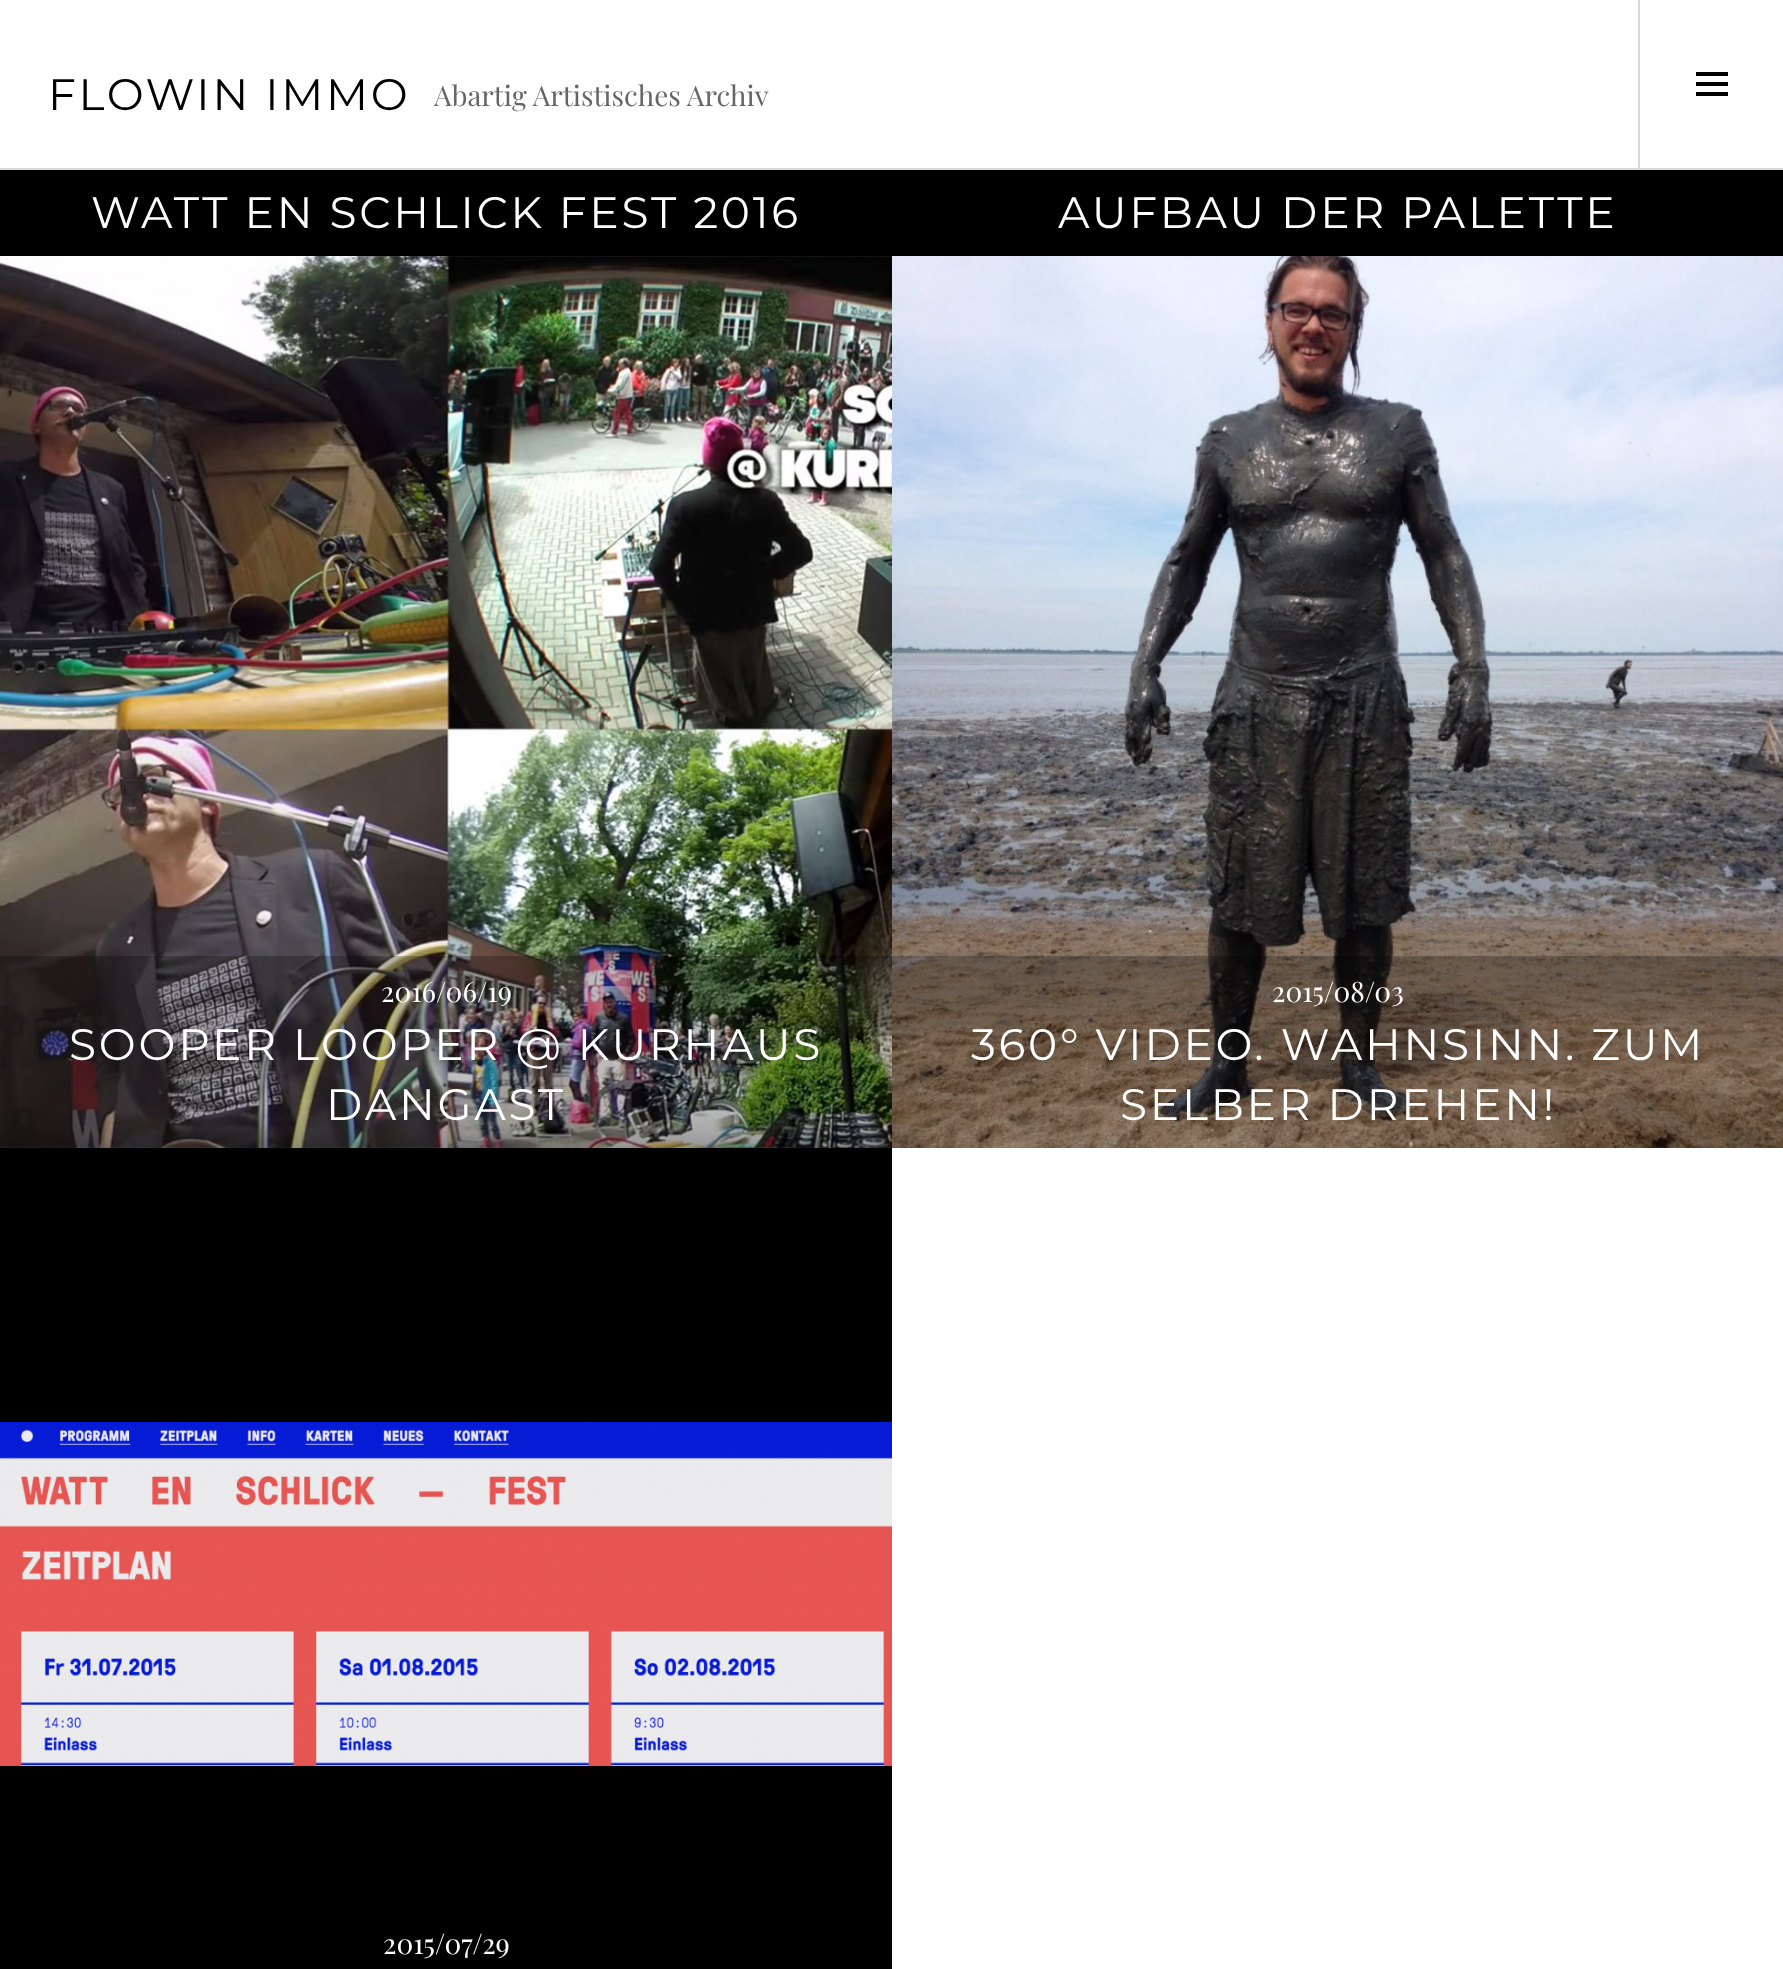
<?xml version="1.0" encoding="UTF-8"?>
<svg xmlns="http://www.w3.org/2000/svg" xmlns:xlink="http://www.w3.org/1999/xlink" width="1783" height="1969">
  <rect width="100%" height="100%" fill="#ffffff" />
  <rect y="168" width="1783" height="2" fill="#d9d9d9" />
  <rect x="1638" width="2" height="168" fill="#d9d9d9" />
  <image x="1696" y="72" width="32" height="24" xlink:href="image1.png" />
  <rect y="170" width="1783" height="86" fill="#000000" />
  <image x="0" y="256" width="892" height="892" xlink:href="image2.png" />
  <rect y="956" width="892" height="192" fill="#000000" fill-opacity="0.25" />
  <image x="892" y="256" width="891" height="892" xlink:href="image3.png" />
  <rect x="892" y="956" width="891" height="192" fill="#000000" fill-opacity="0.25" />
  <rect y="1148" width="892" height="821" fill="#000000" />
  <image x="0" y="1421" width="892" height="345" xlink:href="image4.png" />
  <text x="48" y="110" style="font-family: Montserrat; font-size: 44px; letter-spacing: 2.75px; fill: #000000">FLOWIN IMMO</text>
  <text x="434" y="106" style="font-family: Playfair Display; font-size: 28px; fill: #666666">Abartig Artistisches Archiv</text>
  <text x="91" y="228" style="font-family: Montserrat; font-size: 44px; letter-spacing: 2.75px; fill: #ffffff">WATT EN SCHLICK FEST 2016</text>
  <text x="1058" y="228" style="font-family: Montserrat; font-size: 44px; letter-spacing: 2.75px; fill: #ffffff">AUFBAU DER PALETTE</text>
  <text x="381" y="1002" style="font-family: Playfair Display; font-size: 28px; fill: #ffffff">2016/06/19</text>
  <text x="69" y="1060" style="font-family: Montserrat; font-size: 44px; letter-spacing: 2.75px; fill: #ffffff">SOOPER LOOPER @ KURHAUS</text>
  <text x="326" y="1120" style="font-family: Montserrat; font-size: 44px; letter-spacing: 2.75px; fill: #ffffff">DANGAST</text>
  <text x="1272" y="1002" style="font-family: Playfair Display; font-size: 28px; fill: #ffffff">2015/08/03</text>
  <text x="971" y="1060" style="font-family: Montserrat; font-size: 44px; letter-spacing: 2.75px; fill: #ffffff">360° VIDEO. WAHNSINN. ZUM</text>
  <text x="1120" y="1120" style="font-family: Montserrat; font-size: 44px; letter-spacing: 2.75px; fill: #ffffff">SELBER DREHEN!</text>
  <text x="383" y="1954" style="font-family: Playfair Display; font-size: 28px; fill: #ffffff">2015/07/29</text>
</svg>
